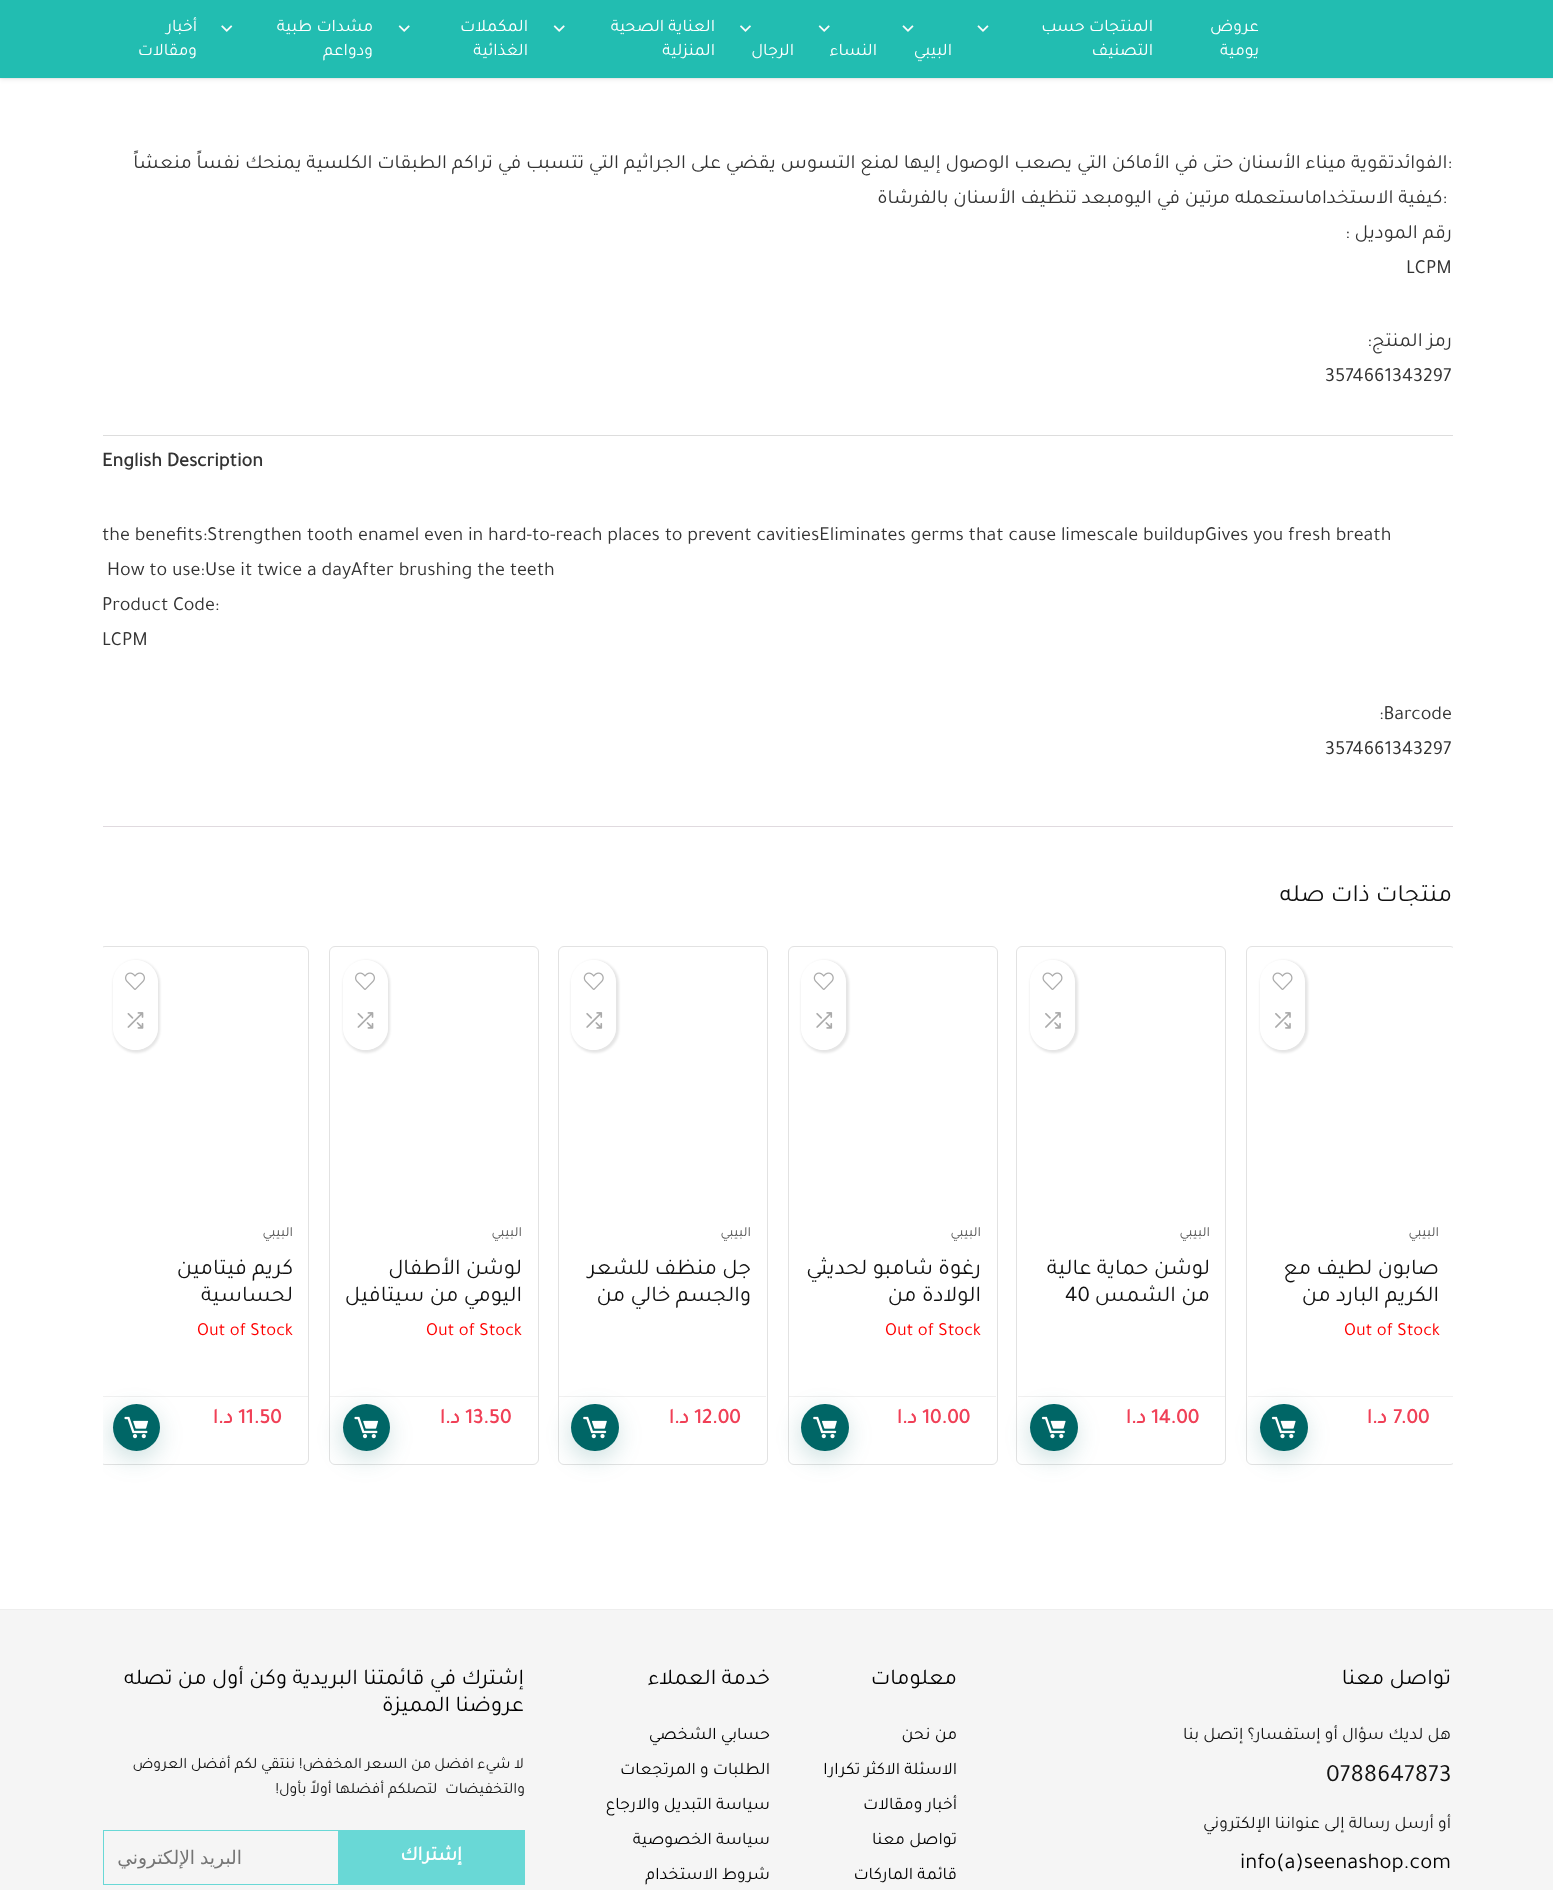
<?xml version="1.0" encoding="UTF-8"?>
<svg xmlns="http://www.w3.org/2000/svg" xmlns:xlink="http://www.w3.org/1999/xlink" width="1553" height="1890">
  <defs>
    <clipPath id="clip1"><rect x="103" y="868" width="1350" height="647" /></clipPath>
    <clipPath id="clip2"><path d="M 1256 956 h 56 v 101 h -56 z m 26.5 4 c 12.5 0 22.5 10 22.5 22.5 v 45 c 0 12.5 -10 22.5 -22.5 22.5 c -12.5 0 -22.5 -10 -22.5 -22.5 v -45 c 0 -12.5 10 -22.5 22.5 -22.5 z" clip-rule="evenodd" /></clipPath>
    <clipPath id="clip3"><path d="M 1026 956 h 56 v 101 h -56 z m 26.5 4 c 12.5 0 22.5 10 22.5 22.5 v 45 c 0 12.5 -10 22.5 -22.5 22.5 c -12.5 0 -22.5 -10 -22.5 -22.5 v -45 c 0 -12.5 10 -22.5 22.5 -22.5 z" clip-rule="evenodd" /></clipPath>
    <clipPath id="clip4"><path d="M 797 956 h 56 v 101 h -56 z m 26.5 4 c 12.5 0 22.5 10 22.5 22.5 v 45 c 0 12.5 -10 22.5 -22.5 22.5 c -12.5 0 -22.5 -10 -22.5 -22.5 v -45 c 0 -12.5 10 -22.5 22.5 -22.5 z" clip-rule="evenodd" /></clipPath>
    <clipPath id="clip5"><path d="M 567 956 h 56 v 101 h -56 z m 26.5 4 c 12.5 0 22.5 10 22.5 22.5 v 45 c 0 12.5 -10 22.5 -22.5 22.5 c -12.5 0 -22.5 -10 -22.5 -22.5 v -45 c 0 -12.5 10 -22.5 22.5 -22.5 z" clip-rule="evenodd" /></clipPath>
    <clipPath id="clip6"><path d="M 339 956 h 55 v 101 h -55 z m 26.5 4 c 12.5 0 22.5 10 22.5 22.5 v 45 c 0 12.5 -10 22.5 -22.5 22.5 c -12.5 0 -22.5 -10 -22.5 -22.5 v -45 c 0 -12.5 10 -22.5 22.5 -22.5 z" clip-rule="evenodd" /></clipPath>
    <clipPath id="clip7"><path d="M 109 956 h 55 v 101 h -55 z m 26.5 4 c 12.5 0 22.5 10 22.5 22.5 v 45 c 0 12.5 -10 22.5 -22.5 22.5 c -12.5 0 -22.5 -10 -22.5 -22.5 v -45 c 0 -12.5 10 -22.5 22.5 -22.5 z" clip-rule="evenodd" /></clipPath>
    <clipPath id="clip8"><rect x="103" y="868" width="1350" height="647" /></clipPath>
  </defs>
  <rect width="100%" height="100%" fill="#ffffff" />
  <rect x="-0.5" y="-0.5" width="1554" height="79" fill="none" stroke="#f7f7f7" />
  <rect y="1" width="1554" height="78" fill="#000000" fill-opacity="0.1" filter="blur(2.5px)" />
  <rect width="1553" height="78" fill="#22bdb1" />
  <image x="977" y="25" width="12" height="7" xlink:href="image1.png" />
  <image x="902" y="25" width="12" height="7" xlink:href="image1.png" />
  <image x="818" y="25" width="12" height="7" xlink:href="image2.png" />
  <image x="740" y="25" width="11" height="7" xlink:href="image3.png" />
  <image x="553" y="25" width="12" height="7" xlink:href="image2.png" />
  <image x="398" y="25" width="12" height="7" xlink:href="image2.png" />
  <image x="221" y="25" width="12" height="7" xlink:href="image4.png" />
  <rect x="103" y="826" width="1350" height="1" fill="#e0dadf" />
  <rect x="103" y="435" width="1350" height="1" fill="#dddddd" />
  <g clip-path="url(#clip1)">
    <rect x="1246.5" y="946.5" width="209" height="518" rx="5.5" fill="none" stroke="#e2e2e2" />
  </g>
  <g clip-path="url(#clip2)">
    <rect x="1260" y="960" width="48" height="93" rx="24" fill="#000000" fill-opacity="0.1" filter="blur(1px)" />
  </g>
  <rect x="1260" y="960" width="45" height="90" rx="22.5" fill="#ffffff" fill-opacity="0.78" />
  <image x="1272" y="972" width="21" height="18" xlink:href="image5.png" />
  <image x="1275" y="1012" width="16" height="17" xlink:href="image6.png" />
  <rect x="1248" y="1396" width="205" height="1" fill="#f0f0f0" />
  <rect x="1259" y="1411" width="47" height="48" rx="23.5" fill="#006666" fill-opacity="0.2" filter="blur(12px)" />
  <rect x="1260" y="1404" width="48" height="47" rx="23.5" fill="#006666" />
  <image x="1271" y="1416" width="25" height="23" xlink:href="image7.png" />
  <rect x="1016.5" y="946.5" width="209" height="518" rx="5.5" fill="none" stroke="#e2e2e2" />
  <g clip-path="url(#clip3)">
    <rect x="1030" y="960" width="48" height="93" rx="24" fill="#000000" fill-opacity="0.1" filter="blur(1px)" />
  </g>
  <rect x="1030" y="960" width="45" height="90" rx="22.5" fill="#ffffff" fill-opacity="0.78" />
  <image x="1042" y="972" width="21" height="18" xlink:href="image5.png" />
  <image x="1045" y="1012" width="16" height="17" xlink:href="image6.png" />
  <rect x="1018" y="1396" width="207" height="1" fill="#f0f0f0" />
  <rect x="1029" y="1411" width="47" height="48" rx="23.5" fill="#006666" fill-opacity="0.2" filter="blur(12px)" />
  <rect x="1030" y="1404" width="48" height="47" rx="23.5" fill="#006666" />
  <image x="1041" y="1416" width="25" height="23" xlink:href="image7.png" />
  <rect x="788.5" y="946.5" width="209" height="518" rx="5.5" fill="none" stroke="#e2e2e2" />
  <g clip-path="url(#clip4)">
    <rect x="801" y="960" width="48" height="93" rx="24" fill="#000000" fill-opacity="0.1" filter="blur(1px)" />
  </g>
  <rect x="801" y="960" width="45" height="90" rx="22.5" fill="#ffffff" fill-opacity="0.78" />
  <image x="813" y="972" width="21" height="18" xlink:href="image8.png" />
  <image x="816" y="1012" width="17" height="17" xlink:href="image9.png" />
  <rect x="789" y="1396" width="207" height="1" fill="#f0f0f0" />
  <rect x="800" y="1411" width="48" height="48" rx="24" fill="#006666" fill-opacity="0.2" filter="blur(12px)" />
  <rect x="801" y="1404" width="48" height="47" rx="23.5" fill="#006666" />
  <image x="813" y="1416" width="24" height="23" xlink:href="image10.png" />
  <rect x="558.5" y="946.5" width="209" height="518" rx="5.5" fill="none" stroke="#e2e2e2" />
  <g clip-path="url(#clip5)">
    <rect x="571" y="960" width="48" height="93" rx="24" fill="#000000" fill-opacity="0.1" filter="blur(1px)" />
  </g>
  <rect x="571" y="960" width="45" height="90" rx="22.5" fill="#ffffff" fill-opacity="0.78" />
  <image x="583" y="972" width="21" height="18" xlink:href="image8.png" />
  <image x="586" y="1012" width="17" height="17" xlink:href="image9.png" />
  <rect x="559" y="1396" width="207" height="1" fill="#f0f0f0" />
  <rect x="570" y="1411" width="48" height="48" rx="24" fill="#006666" fill-opacity="0.2" filter="blur(12px)" />
  <rect x="571" y="1404" width="48" height="47" rx="23.5" fill="#006666" />
  <image x="583" y="1416" width="24" height="23" xlink:href="image10.png" />
  <rect x="329.5" y="946.5" width="209" height="518" rx="5.5" fill="none" stroke="#e2e2e2" />
  <g clip-path="url(#clip6)">
    <rect x="343" y="960" width="47" height="93" rx="23.5" fill="#000000" fill-opacity="0.1" filter="blur(1px)" />
  </g>
  <rect x="343" y="960" width="45" height="90" rx="22.5" fill="#ffffff" fill-opacity="0.78" />
  <image x="355" y="972" width="20" height="18" xlink:href="image11.png" />
  <image x="357" y="1012" width="17" height="17" xlink:href="image12.png" />
  <rect x="330" y="1396" width="208" height="1" fill="#f0f0f0" />
  <rect x="341" y="1411" width="48" height="48" rx="24" fill="#006666" fill-opacity="0.2" filter="blur(12px)" />
  <circle cx="366.5" cy="1427.5" r="23.5" fill="#006666" />
  <image x="354" y="1416" width="25" height="23" xlink:href="image13.png" />
  <g clip-path="url(#clip1)">
    <rect x="99.5" y="946.5" width="209" height="518" rx="5.5" fill="none" stroke="#e2e2e2" />
  </g>
  <g clip-path="url(#clip7)">
    <rect x="113" y="960" width="47" height="93" rx="23.5" fill="#000000" fill-opacity="0.1" filter="blur(1px)" />
  </g>
  <rect x="113" y="960" width="45" height="90" rx="22.5" fill="#ffffff" fill-opacity="0.78" />
  <image x="125" y="972" width="20" height="18" xlink:href="image11.png" />
  <image x="127" y="1012" width="17" height="17" xlink:href="image12.png" />
  <rect x="103" y="1396" width="205" height="1" fill="#f0f0f0" />
  <g clip-path="url(#clip8)">
    <rect x="111" y="1411" width="48" height="48" rx="24" fill="#006666" fill-opacity="0.2" filter="blur(12px)" />
  </g>
  <circle cx="136.5" cy="1427.5" r="23.5" fill="#006666" />
  <image x="124" y="1416" width="25" height="23" xlink:href="image13.png" />
  <rect y="1610" width="1553" height="280" fill="#f5f5f5" />
  <rect y="1609" width="1553" height="1" fill="#eeeeee" />
  <rect x="103.5" y="1830.5" width="421" height="54" fill="none" stroke="#69d8d6" />
  <rect x="338" y="1831" width="186" height="53" fill="#69d8d6" />
  <text x="1259" y="31" style="font-family: Tajawal; font-size: 17.5px; direction: rtl; fill: #ffffff">عروض</text>
  <text x="1259" y="55" style="font-family: Tajawal; font-size: 17.5px; direction: rtl; fill: #ffffff">يومية</text>
  <text x="1153" y="31" style="font-family: Tajawal; font-size: 17.5px; direction: rtl; fill: #ffffff">المنتجات حسب</text>
  <text x="1153" y="55" style="font-family: Tajawal; font-size: 17.5px; direction: rtl; fill: #ffffff">التصنيف</text>
  <text x="952" y="55" style="font-family: Tajawal; font-size: 17.5px; direction: rtl; fill: #ffffff">البيبي</text>
  <text x="877" y="55" style="font-family: Tajawal; font-size: 17.5px; direction: rtl; fill: #ffffff">النساء</text>
  <text x="794" y="55" style="font-family: Tajawal; font-size: 17.5px; direction: rtl; fill: #ffffff">الرجال</text>
  <text x="715" y="31" style="font-family: Tajawal; font-size: 17.5px; direction: rtl; fill: #ffffff">العناية الصحية</text>
  <text x="715" y="55" style="font-family: Tajawal; font-size: 17.5px; direction: rtl; fill: #ffffff">المنزلية</text>
  <text x="528" y="31" style="font-family: Tajawal; font-size: 17.5px; direction: rtl; fill: #ffffff">المكملات</text>
  <text x="528" y="55" style="font-family: Tajawal; font-size: 17.5px; direction: rtl; fill: #ffffff">الغذائية</text>
  <text x="373" y="31" style="font-family: Tajawal; font-size: 17.5px; direction: rtl; fill: #ffffff">مشدات طبية</text>
  <text x="373" y="55" style="font-family: Tajawal; font-size: 17.5px; direction: rtl; fill: #ffffff">ودواعم</text>
  <text x="197" y="31" style="font-family: Tajawal; font-size: 17.5px; direction: rtl; fill: #ffffff">أخبار</text>
  <text x="197" y="55" style="font-family: Tajawal; font-size: 17.5px; direction: rtl; fill: #ffffff">ومقالات</text>
  <text x="1452" y="168" style="font-family: Tajawal; font-size: 20px; direction: rtl; fill: #333333">:الفوائدتقوية ميناء الأسنان حتى في الأماكن التي يصعب الوصول إليها لمنع التسوس يقضي على الجراثيم التي تتسبب في تراكم الطبقات الكلسية يمنحك نفساً منعشاً</text>
  <text x="1447" y="203" style="font-family: Tajawal; font-size: 20px; direction: rtl; fill: #333333">:كيفية الاستخداماستعمله مرتين في اليومبعد تنظيف الأسنان بالفرشاة</text>
  <text x="1452" y="238" style="font-family: Tajawal; font-size: 20px; direction: rtl; fill: #333333">رقم الموديل :</text>
  <text x="1406" y="273" style="font-family: Tajawal; font-size: 20px; fill: #333333">LCPM</text>
  <text x="1452" y="346" style="font-family: Tajawal; font-size: 20px; direction: rtl; fill: #333333">رمز المنتج:</text>
  <text x="1325" y="381" style="font-family: Tajawal; font-size: 20px; fill: #333333">3574661343297</text>
  <text x="102" y="466" style="font-family: Tajawal; font-size: 20px; font-weight: bold; fill: #333333">English Description</text>
  <text x="102" y="540" style="font-family: Tajawal; font-size: 20px; fill: #333333">the benefits:Strengthen tooth enamel even in hard-to-reach places to prevent cavitiesEliminates germs that cause limescale buildupGives you fresh breath</text>
  <text x="107" y="575" style="font-family: Tajawal; font-size: 20px; fill: #333333">How to use:Use it twice a dayAfter brushing the teeth</text>
  <text x="102" y="610" style="font-family: Tajawal; font-size: 20px; fill: #333333">Product Code:</text>
  <text x="102" y="645" style="font-family: Tajawal; font-size: 20px; fill: #333333">LCPM</text>
  <text x="1379" y="719" style="font-family: Tajawal; font-size: 20px; fill: #333333">:Barcode</text>
  <text x="1325" y="754" style="font-family: Tajawal; font-size: 20px; fill: #333333">3574661343297</text>
  <text x="1452" y="901" style="font-family: Tajawal; font-size: 25px; direction: rtl; fill: #111111">منتجات ذات صله</text>
  <text x="1439" y="1236" style="font-family: Tajawal; font-size: 14px; direction: rtl; fill: #555555">البيبي</text>
  <text x="1439" y="1274" style="font-family: Tajawal; font-size: 22.5px; direction: rtl; fill: #111111">صابون لطيف مع</text>
  <text x="1439" y="1301" style="font-family: Tajawal; font-size: 22.5px; direction: rtl; fill: #111111">الكريم البارد من</text>
  <text x="1344" y="1335" style="font-family: Tajawal; font-size: 18.5px; fill: #ff0000">Out of Stock</text>
  <text x="1393" y="1423" style="font-family: Tajawal; font-size: 21px; font-weight: bold; fill: #f04057">7.00</text>
  <text x="1387" y="1423" style="font-family: Tajawal; font-size: 21px; font-weight: bold; direction: rtl; fill: #f04057">د.ا</text>
  <text x="1210" y="1236" style="font-family: Tajawal; font-size: 14px; direction: rtl; fill: #555555">البيبي</text>
  <text x="1210" y="1274" style="font-family: Tajawal; font-size: 22.5px; direction: rtl; fill: #111111">لوشن حماية عالية</text>
  <text x="1210" y="1301" style="font-family: Tajawal; font-size: 22.5px; direction: rtl; fill: #111111">من الشمس</text>
  <text x="1065" y="1301" style="font-family: Tajawal; font-size: 22.5px; fill: #111111">40</text>
  <text x="1151" y="1423" style="font-family: Tajawal; font-size: 21px; font-weight: bold; fill: #f04057">14.00</text>
  <text x="1146" y="1423" style="font-family: Tajawal; font-size: 21px; font-weight: bold; direction: rtl; fill: #f04057">د.ا</text>
  <text x="981" y="1236" style="font-family: Tajawal; font-size: 14px; direction: rtl; fill: #555555">البيبي</text>
  <text x="981" y="1274" style="font-family: Tajawal; font-size: 22.5px; direction: rtl; fill: #111111">رغوة شامبو لحديثي</text>
  <text x="981" y="1301" style="font-family: Tajawal; font-size: 22.5px; direction: rtl; fill: #111111">الولادة من</text>
  <text x="885" y="1335" style="font-family: Tajawal; font-size: 18.5px; fill: #ff0000">Out of Stock</text>
  <text x="922" y="1423" style="font-family: Tajawal; font-size: 21px; font-weight: bold; fill: #f04057">10.00</text>
  <text x="917" y="1423" style="font-family: Tajawal; font-size: 21px; font-weight: bold; direction: rtl; fill: #f04057">د.ا</text>
  <text x="751" y="1236" style="font-family: Tajawal; font-size: 14px; direction: rtl; fill: #555555">البيبي</text>
  <text x="751" y="1274" style="font-family: Tajawal; font-size: 22.5px; direction: rtl; fill: #111111">جل منظف للشعر</text>
  <text x="751" y="1301" style="font-family: Tajawal; font-size: 22.5px; direction: rtl; fill: #111111">والجسم خالي من</text>
  <text x="694" y="1423" style="font-family: Tajawal; font-size: 21px; font-weight: bold; fill: #f04057">12.00</text>
  <text x="689" y="1423" style="font-family: Tajawal; font-size: 21px; font-weight: bold; direction: rtl; fill: #f04057">د.ا</text>
  <text x="522" y="1236" style="font-family: Tajawal; font-size: 14px; direction: rtl; fill: #555555">البيبي</text>
  <text x="522" y="1274" style="font-family: Tajawal; font-size: 22.5px; direction: rtl; fill: #111111">لوشن الأطفال</text>
  <text x="522" y="1301" style="font-family: Tajawal; font-size: 22.5px; direction: rtl; fill: #111111">اليومي من سيتافيل</text>
  <text x="426" y="1335" style="font-family: Tajawal; font-size: 18.5px; fill: #ff0000">Out of Stock</text>
  <text x="465" y="1423" style="font-family: Tajawal; font-size: 21px; font-weight: bold; fill: #f04057">13.50</text>
  <text x="460" y="1423" style="font-family: Tajawal; font-size: 21px; font-weight: bold; direction: rtl; fill: #f04057">د.ا</text>
  <text x="293" y="1236" style="font-family: Tajawal; font-size: 14px; direction: rtl; fill: #555555">البيبي</text>
  <text x="293" y="1274" style="font-family: Tajawal; font-size: 22.5px; direction: rtl; fill: #111111">كريم فيتامين</text>
  <text x="293" y="1301" style="font-family: Tajawal; font-size: 22.5px; direction: rtl; fill: #111111">لحساسية</text>
  <text x="197" y="1335" style="font-family: Tajawal; font-size: 18.5px; fill: #ff0000">Out of Stock</text>
  <text x="238" y="1423" style="font-family: Tajawal; font-size: 21px; font-weight: bold; fill: #f04057">11.50</text>
  <text x="233" y="1423" style="font-family: Tajawal; font-size: 21px; font-weight: bold; direction: rtl; fill: #f04057">د.ا</text>
  <text x="1451" y="1684" style="font-family: Tajawal; font-size: 22.5px; direction: rtl; fill: #000000">تواصل معنا</text>
  <text x="1451" y="1739" style="font-family: Tajawal; font-size: 17.5px; direction: rtl; fill: #111111">هل لديك سؤال أو إستفسار؟ إتصل بنا</text>
  <text x="1326" y="1781" style="font-family: Tajawal; font-size: 25px; fill: #111111">0788647873</text>
  <text x="1451" y="1828" style="font-family: Tajawal; font-size: 17.5px; direction: rtl; fill: #111111">أو أرسل رسالة إلى عنواننا الإلكتروني</text>
  <text x="1240" y="1868" style="font-family: Tajawal; font-size: 22.5px; fill: #000000">info(a)seenashop.com</text>
  <text x="957" y="1684" style="font-family: Tajawal; font-size: 22.5px; direction: rtl; fill: #000000">معلومات</text>
  <text x="957" y="1739" style="font-family: Tajawal; font-size: 17.5px; direction: rtl; fill: #000000">من نحن</text>
  <text x="957" y="1774" style="font-family: Tajawal; font-size: 17.5px; direction: rtl; fill: #000000">الاسئلة الاكثر تكرارا</text>
  <text x="957" y="1809" style="font-family: Tajawal; font-size: 17.5px; direction: rtl; fill: #000000">أخبار ومقالات</text>
  <text x="957" y="1844" style="font-family: Tajawal; font-size: 17.5px; direction: rtl; fill: #000000">تواصل معنا</text>
  <text x="957" y="1879" style="font-family: Tajawal; font-size: 17.5px; direction: rtl; fill: #000000">قائمة الماركات</text>
  <text x="770" y="1684" style="font-family: Tajawal; font-size: 22.5px; direction: rtl; fill: #000000">خدمة العملاء</text>
  <text x="770" y="1739" style="font-family: Tajawal; font-size: 17.5px; direction: rtl; fill: #000000">حسابي الشخصي</text>
  <text x="770" y="1774" style="font-family: Tajawal; font-size: 17.5px; direction: rtl; fill: #000000">الطلبات و المرتجعات</text>
  <text x="770" y="1809" style="font-family: Tajawal; font-size: 17.5px; direction: rtl; fill: #000000">سياسة التبديل والارجاع</text>
  <text x="770" y="1844" style="font-family: Tajawal; font-size: 17.5px; direction: rtl; fill: #000000">سياسة الخصوصية</text>
  <text x="770" y="1879" style="font-family: Tajawal; font-size: 17.5px; direction: rtl; fill: #000000">شروط الاستخدام</text>
  <text x="524" y="1684" style="font-family: Tajawal; font-size: 22.5px; direction: rtl; fill: #000000">إشترك في قائمتنا البريدية وكن أول من تصله</text>
  <text x="524" y="1711" style="font-family: Tajawal; font-size: 22.5px; direction: rtl; fill: #000000">عروضنا المميزة</text>
  <text x="524" y="1768" style="font-family: Tajawal; font-size: 15.75px; direction: rtl; fill: #111111">لا شيء</text>
  <text x="474" y="1768" style="font-family: Tajawal; font-size: 15.75px; direction: rtl; fill: #111111">افضل</text>
  <text x="431" y="1768" style="font-family: Tajawal; font-size: 15.75px; direction: rtl; fill: #111111">من السعر المخفض!</text>
  <text x="295" y="1768" style="font-family: Tajawal; font-size: 15.75px; direction: rtl; fill: #111111">ننتقي لكم أفضل العروض</text>
  <text x="525" y="1793" style="font-family: Tajawal; font-size: 15.75px; direction: rtl; fill: #111111" xml:space="preserve">والتخفيضات  لتصلكم أفضلها أولاً بأول!</text>
  <text x="462" y="1860" style="font-family: Tajawal; font-size: 20px; font-weight: bold; direction: rtl; fill: #ffffff">إشتراك</text>
  <text x="242" y="1864" word-spacing="-1" style="font-family: DejaVu Sans; font-size: 18.75px; direction: rtl; fill: #757575">البريد الإلكتروني</text>
</svg>
